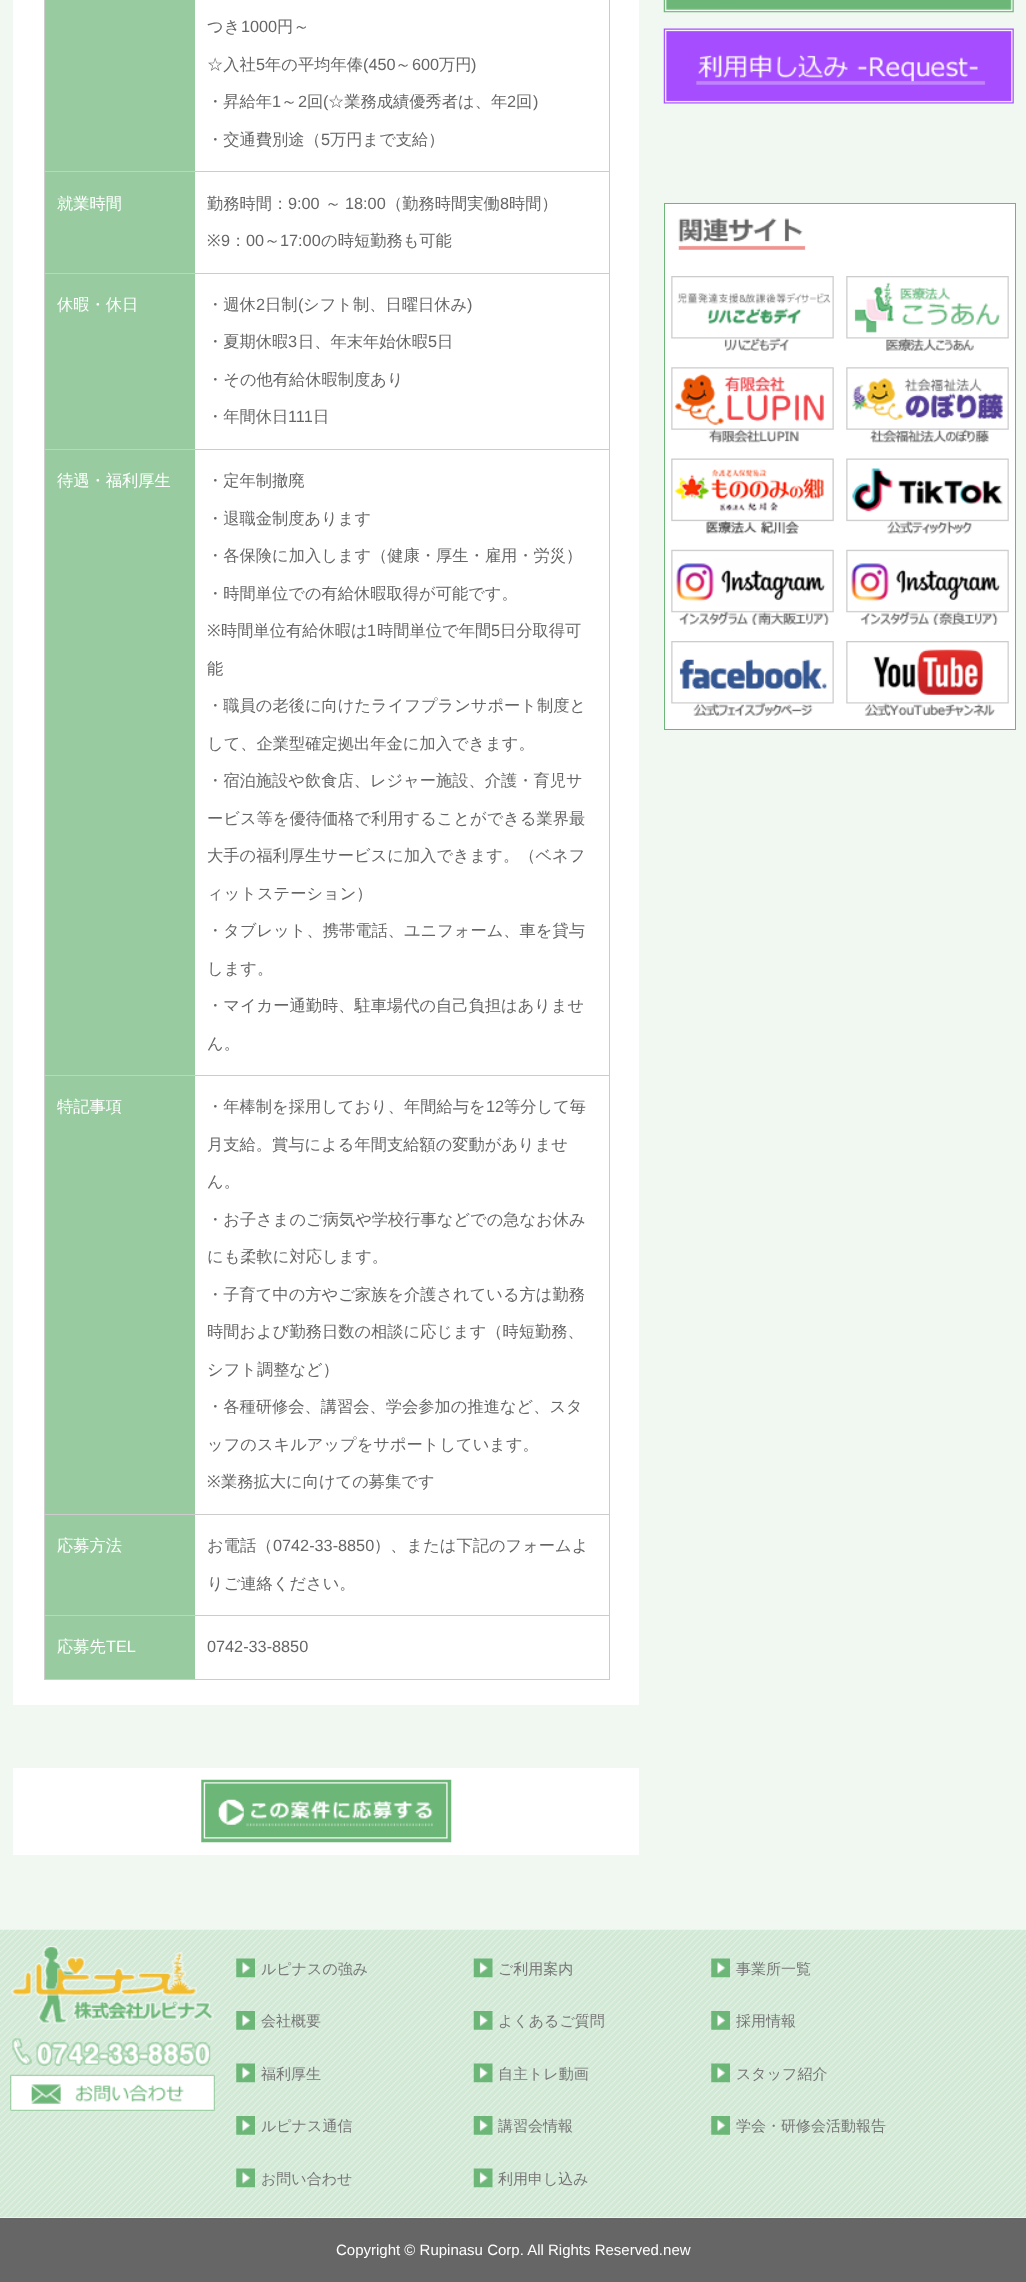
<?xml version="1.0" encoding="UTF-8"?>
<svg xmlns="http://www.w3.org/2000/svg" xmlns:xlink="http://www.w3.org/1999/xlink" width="1026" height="2282">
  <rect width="100%" height="100%" fill="#f1f8f1" />
  <rect x="13" width="626" height="1705" fill="#ffffff" />
  <rect x="45" width="150" height="1679" fill="#98cca0" />
  <rect x="609" width="1" height="1680" fill="#cccccc" />
  <rect x="44" y="1679" width="566" height="1" fill="#cccccc" />
  <rect x="44" width="1" height="1680" fill="#cccccc" />
  <rect x="45" y="171" width="564" height="1" fill="#cccccc" />
  <rect x="45" y="273" width="564" height="1" fill="#cccccc" />
  <rect x="45" y="449" width="564" height="1" fill="#cccccc" />
  <rect x="45" y="1075" width="564" height="1" fill="#cccccc" />
  <rect x="45" y="1514" width="564" height="1" fill="#cccccc" />
  <rect x="45" y="1615" width="564" height="1" fill="#cccccc" />
  <rect x="13" y="1768" width="626" height="87" fill="#ffffff" />
  <image x="201" y="1779" width="251" height="64" xlink:href="image1.png" />
  <image x="663" y="0" width="351" height="13" xlink:href="image2.png" />
  <image x="663" y="28" width="351" height="76" xlink:href="image3.png" />
  <rect x="664.5" y="203.5" width="351" height="526" fill="#ffffff" stroke="#6cb677" />
  <image x="678" y="218" width="128" height="32" xlink:href="image4.png" />
  <image x="671" y="276" width="163" height="75" xlink:href="image5.png" />
  <image x="846" y="276" width="163" height="75" xlink:href="image6.png" />
  <image x="671" y="367" width="163" height="76" xlink:href="image7.png" />
  <image x="846" y="367" width="163" height="76" xlink:href="image8.png" />
  <image x="671" y="458" width="163" height="76" xlink:href="image9.png" />
  <image x="846" y="458" width="163" height="76" xlink:href="image10.png" />
  <image x="671" y="549" width="163" height="76" xlink:href="image11.png" />
  <image x="846" y="549" width="163" height="76" xlink:href="image12.png" />
  <image x="671" y="641" width="163" height="75" xlink:href="image13.png" />
  <image x="846" y="641" width="163" height="75" xlink:href="image14.png" />
  <image x="0" y="1929" width="1026" height="289" xlink:href="image15.png" />
  <image x="11" y="1946" width="203" height="78" xlink:href="image16.png" />
  <image x="12" y="2038" width="199" height="28" xlink:href="image17.png" />
  <image x="10" y="2074" width="205" height="37" xlink:href="image18.png" />
  <image x="236" y="1958" width="19" height="20" xlink:href="image19.png" />
  <image x="473" y="1958" width="20" height="20" xlink:href="image20.png" />
  <image x="711" y="1958" width="19" height="20" xlink:href="image19.png" />
  <image x="236" y="2011" width="19" height="19" xlink:href="image21.png" />
  <image x="473" y="2011" width="20" height="19" xlink:href="image22.png" />
  <image x="711" y="2011" width="19" height="19" xlink:href="image21.png" />
  <image x="236" y="2063" width="19" height="20" xlink:href="image23.png" />
  <image x="473" y="2063" width="20" height="20" xlink:href="image24.png" />
  <image x="711" y="2063" width="19" height="20" xlink:href="image23.png" />
  <image x="236" y="2116" width="19" height="19" xlink:href="image25.png" />
  <image x="473" y="2116" width="20" height="19" xlink:href="image26.png" />
  <image x="711" y="2116" width="19" height="19" xlink:href="image25.png" />
  <image x="236" y="2168" width="19" height="20" xlink:href="image27.png" />
  <image x="473" y="2168" width="20" height="20" xlink:href="image28.png" />
  <rect y="2218" width="1026" height="64" fill="#666666" />
  <text x="207" y="32" style="font-family: WenQuanYi Zen Hei; font-size: 16.25px; font-weight: 500; fill: #666666">つき</text>
  <text x="241" y="32" style="font-family: Liberation Sans; font-size: 16.25px; fill: #666666">1000</text>
  <text x="277" y="32" style="font-family: WenQuanYi Zen Hei; font-size: 16.25px; font-weight: 500; fill: #666666">円～</text>
  <text x="207" y="70" style="font-family: WenQuanYi Zen Hei; font-size: 16.25px; font-weight: 500; fill: #666666">☆入社</text>
  <text x="256" y="70" style="font-family: Liberation Sans; font-size: 16.25px; fill: #666666">5</text>
  <text x="265" y="70" style="font-family: WenQuanYi Zen Hei; font-size: 16.25px; font-weight: 500; fill: #666666">年の平均年俸</text>
  <text x="363" y="70" style="font-family: Liberation Sans; font-size: 16.25px; fill: #666666">(450</text>
  <text x="395" y="70" style="font-family: WenQuanYi Zen Hei; font-size: 16.25px; font-weight: 500; fill: #666666">～</text>
  <text x="412" y="70" style="font-family: Liberation Sans; font-size: 16.25px; fill: #666666">600</text>
  <text x="439" y="70" style="font-family: WenQuanYi Zen Hei; font-size: 16.25px; font-weight: 500; fill: #666666">万円</text>
  <text x="471" y="70" style="font-family: Liberation Sans; font-size: 16.25px; fill: #666666">)</text>
  <text x="207" y="107" style="font-family: WenQuanYi Zen Hei; font-size: 16.25px; font-weight: 500; fill: #666666">・昇給年</text>
  <text x="272" y="107" style="font-family: Liberation Sans; font-size: 16.25px; fill: #666666">1</text>
  <text x="281" y="107" style="font-family: WenQuanYi Zen Hei; font-size: 16.25px; font-weight: 500; fill: #666666">～</text>
  <text x="298" y="107" style="font-family: Liberation Sans; font-size: 16.25px; fill: #666666">2</text>
  <text x="307" y="107" style="font-family: WenQuanYi Zen Hei; font-size: 16.25px; font-weight: 500; fill: #666666">回</text>
  <text x="323" y="107" style="font-family: Liberation Sans; font-size: 16.25px; fill: #666666">(</text>
  <text x="328" y="107" style="font-family: WenQuanYi Zen Hei; font-size: 16.25px; font-weight: 500; fill: #666666">☆業務成績優秀者は、年</text>
  <text x="507" y="107" style="font-family: Liberation Sans; font-size: 16.25px; fill: #666666">2</text>
  <text x="516" y="107" style="font-family: WenQuanYi Zen Hei; font-size: 16.25px; font-weight: 500; fill: #666666">回</text>
  <text x="533" y="107" style="font-family: Liberation Sans; font-size: 16.25px; fill: #666666">)</text>
  <text x="207" y="145" style="font-family: WenQuanYi Zen Hei; font-size: 16.25px; font-weight: 500; fill: #666666">・交通費別途（</text>
  <text x="321" y="145" style="font-family: Liberation Sans; font-size: 16.25px; fill: #666666">5</text>
  <text x="330" y="145" style="font-family: WenQuanYi Zen Hei; font-size: 16.25px; font-weight: 500; fill: #666666">万円まで支給）</text>
  <text x="57" y="209" style="font-family: WenQuanYi Zen Hei; font-size: 16.25px; font-weight: 500; fill: #ffffff">就業時間</text>
  <text x="207" y="209" style="font-family: WenQuanYi Zen Hei; font-size: 16.25px; font-weight: 500; fill: #666666">勤務時間：</text>
  <text x="288" y="209" style="font-family: Liberation Sans; font-size: 16.25px; fill: #666666">9:00</text>
  <text x="325" y="209" style="font-family: WenQuanYi Zen Hei; font-size: 16.25px; font-weight: 500; fill: #666666">～</text>
  <text x="345" y="209" style="font-family: Liberation Sans; font-size: 16.25px; fill: #666666">18:00</text>
  <text x="386" y="209" style="font-family: WenQuanYi Zen Hei; font-size: 16.25px; font-weight: 500; fill: #666666">（勤務時間実働</text>
  <text x="500" y="209" style="font-family: Liberation Sans; font-size: 16.25px; fill: #666666">8</text>
  <text x="509" y="209" style="font-family: WenQuanYi Zen Hei; font-size: 16.25px; font-weight: 500; fill: #666666">時間）</text>
  <text x="207" y="246" style="font-family: Noto Sans; font-size: 16.25px; fill: #666666">※</text>
  <text x="221" y="246" style="font-family: Liberation Sans; font-size: 16.25px; fill: #666666">9</text>
  <text x="230" y="246" style="font-family: WenQuanYi Zen Hei; font-size: 16.25px; font-weight: 500; fill: #666666">：</text>
  <text x="246" y="246" style="font-family: Liberation Sans; font-size: 16.25px; fill: #666666">00</text>
  <text x="264" y="246" style="font-family: WenQuanYi Zen Hei; font-size: 16.25px; font-weight: 500; fill: #666666">～</text>
  <text x="280" y="246" style="font-family: Liberation Sans; font-size: 16.25px; fill: #666666">17:00</text>
  <text x="321" y="246" style="font-family: WenQuanYi Zen Hei; font-size: 16.25px; font-weight: 500; fill: #666666">の時短勤務も可能</text>
  <text x="57" y="310" style="font-family: WenQuanYi Zen Hei; font-size: 16.25px; font-weight: 500; fill: #ffffff">休暇・休日</text>
  <text x="207" y="310" style="font-family: WenQuanYi Zen Hei; font-size: 16.25px; font-weight: 500; fill: #666666">・週休</text>
  <text x="256" y="310" style="font-family: Liberation Sans; font-size: 16.25px; fill: #666666">2</text>
  <text x="265" y="310" style="font-family: WenQuanYi Zen Hei; font-size: 16.25px; font-weight: 500; fill: #666666">日制</text>
  <text x="298" y="310" style="font-family: Liberation Sans; font-size: 16.25px; fill: #666666">(</text>
  <text x="303" y="310" style="font-family: WenQuanYi Zen Hei; font-size: 16.25px; font-weight: 500; fill: #666666">シフト制、日曜日休み</text>
  <text x="467" y="310" style="font-family: Liberation Sans; font-size: 16.25px; fill: #666666">)</text>
  <text x="207" y="347" style="font-family: WenQuanYi Zen Hei; font-size: 16.25px; font-weight: 500; fill: #666666">・夏期休暇</text>
  <text x="288" y="347" style="font-family: Liberation Sans; font-size: 16.25px; fill: #666666">3</text>
  <text x="298" y="347" style="font-family: WenQuanYi Zen Hei; font-size: 16.25px; font-weight: 500; fill: #666666">日、年末年始休暇</text>
  <text x="428" y="347" style="font-family: Liberation Sans; font-size: 16.25px; fill: #666666">5</text>
  <text x="437" y="347" style="font-family: WenQuanYi Zen Hei; font-size: 16.25px; font-weight: 500; fill: #666666">日</text>
  <text x="207" y="385" style="font-family: WenQuanYi Zen Hei; font-size: 16.25px; font-weight: 500; fill: #666666">・その他有給休暇制度あり</text>
  <text x="207" y="422" style="font-family: WenQuanYi Zen Hei; font-size: 16.25px; font-weight: 500; fill: #666666">・年間休日</text>
  <text x="288" y="422" style="font-family: Liberation Sans; font-size: 16.25px; fill: #666666">111</text>
  <text x="313" y="422" style="font-family: WenQuanYi Zen Hei; font-size: 16.25px; font-weight: 500; fill: #666666">日</text>
  <text x="57" y="486" style="font-family: WenQuanYi Zen Hei; font-size: 16.25px; font-weight: 500; fill: #ffffff">待遇・福利厚生</text>
  <text x="207" y="486" style="font-family: WenQuanYi Zen Hei; font-size: 16.25px; font-weight: 500; fill: #666666">・定年制撤廃</text>
  <text x="207" y="524" style="font-family: WenQuanYi Zen Hei; font-size: 16.25px; font-weight: 500; fill: #666666">・退職金制度あります</text>
  <text x="207" y="561" style="font-family: WenQuanYi Zen Hei; font-size: 16.25px; font-weight: 500; fill: #666666">・各保険に加入します（健康・厚生・雇用・労災）</text>
  <text x="207" y="599" style="font-family: WenQuanYi Zen Hei; font-size: 16.25px; font-weight: 500; fill: #666666">・時間単位での有給休暇取得が可能です。</text>
  <text x="207" y="636" style="font-family: Noto Sans; font-size: 16.25px; fill: #666666">※</text>
  <text x="221" y="636" style="font-family: WenQuanYi Zen Hei; font-size: 16.25px; font-weight: 500; fill: #666666">時間単位有給休暇は</text>
  <text x="367" y="636" style="font-family: Liberation Sans; font-size: 16.25px; fill: #666666">1</text>
  <text x="377" y="636" style="font-family: WenQuanYi Zen Hei; font-size: 16.25px; font-weight: 500; fill: #666666">時間単位で年間</text>
  <text x="491" y="636" style="font-family: Liberation Sans; font-size: 16.25px; fill: #666666">5</text>
  <text x="500" y="636" style="font-family: WenQuanYi Zen Hei; font-size: 16.25px; font-weight: 500; fill: #666666">日分取得可</text>
  <text x="207" y="674" style="font-family: WenQuanYi Zen Hei; font-size: 16.25px; font-weight: 500; fill: #666666">能</text>
  <text x="207" y="711" style="font-family: WenQuanYi Zen Hei; font-size: 16.25px; font-weight: 500; fill: #666666">・職員の老後に向けたライフプランサポート制度と</text>
  <text x="207" y="749" style="font-family: WenQuanYi Zen Hei; font-size: 16.25px; font-weight: 500; fill: #666666">して、企業型確定拠出年金に加入できます。</text>
  <text x="207" y="786" style="font-family: WenQuanYi Zen Hei; font-size: 16.25px; font-weight: 500; fill: #666666">・宿泊施設や飲食店、レジャー施設、介護・育児サ</text>
  <text x="207" y="824" style="font-family: WenQuanYi Zen Hei; font-size: 16.25px; font-weight: 500; fill: #666666">ービス等を優待価格で利用することができる業界最</text>
  <text x="207" y="861" style="font-family: WenQuanYi Zen Hei; font-size: 16.25px; font-weight: 500; fill: #666666">大手の福利厚生サービスに加入できます。（ベネフ</text>
  <text x="207" y="899" style="font-family: WenQuanYi Zen Hei; font-size: 16.25px; font-weight: 500; fill: #666666">ィットステーション）</text>
  <text x="207" y="936" style="font-family: WenQuanYi Zen Hei; font-size: 16.25px; font-weight: 500; fill: #666666">・タブレット、携帯電話、ユニフォーム、車を貸与</text>
  <text x="207" y="974" style="font-family: WenQuanYi Zen Hei; font-size: 16.25px; font-weight: 500; fill: #666666">します。</text>
  <text x="207" y="1011" style="font-family: WenQuanYi Zen Hei; font-size: 16.25px; font-weight: 500; fill: #666666">・マイカー通勤時、駐車場代の自己負担はありませ</text>
  <text x="207" y="1049" style="font-family: WenQuanYi Zen Hei; font-size: 16.25px; font-weight: 500; fill: #666666">ん。</text>
  <text x="57" y="1112" style="font-family: WenQuanYi Zen Hei; font-size: 16.25px; font-weight: 500; fill: #ffffff">特記事項</text>
  <text x="207" y="1112" style="font-family: WenQuanYi Zen Hei; font-size: 16.25px; font-weight: 500; fill: #666666">・年棒制を採用しており、年間給与を</text>
  <text x="486" y="1112" style="font-family: Liberation Sans; font-size: 16.25px; fill: #666666">12</text>
  <text x="504" y="1112" style="font-family: WenQuanYi Zen Hei; font-size: 16.25px; font-weight: 500; fill: #666666">等分して毎</text>
  <text x="207" y="1150" style="font-family: WenQuanYi Zen Hei; font-size: 16.25px; font-weight: 500; fill: #666666">月支給。賞与による年間支給額の変動がありませ</text>
  <text x="207" y="1187" style="font-family: WenQuanYi Zen Hei; font-size: 16.25px; font-weight: 500; fill: #666666">ん。</text>
  <text x="207" y="1225" style="font-family: WenQuanYi Zen Hei; font-size: 16.25px; font-weight: 500; fill: #666666">・お子さまのご病気や学校行事などでの急なお休み</text>
  <text x="207" y="1262" style="font-family: WenQuanYi Zen Hei; font-size: 16.25px; font-weight: 500; fill: #666666">にも柔軟に対応します。</text>
  <text x="207" y="1300" style="font-family: WenQuanYi Zen Hei; font-size: 16.25px; font-weight: 500; fill: #666666">・子育て中の方やご家族を介護されている方は勤務</text>
  <text x="207" y="1337" style="font-family: WenQuanYi Zen Hei; font-size: 16.25px; font-weight: 500; fill: #666666">時間および勤務日数の相談に応じます（時短勤務、</text>
  <text x="207" y="1375" style="font-family: WenQuanYi Zen Hei; font-size: 16.25px; font-weight: 500; fill: #666666">シフト調整など）</text>
  <text x="207" y="1412" style="font-family: WenQuanYi Zen Hei; font-size: 16.25px; font-weight: 500; fill: #666666">・各種研修会、講習会、学会参加の推進など、スタ</text>
  <text x="207" y="1450" style="font-family: WenQuanYi Zen Hei; font-size: 16.25px; font-weight: 500; fill: #666666">ッフのスキルアップをサポートしています。</text>
  <text x="207" y="1487" style="font-family: Noto Sans; font-size: 16.25px; fill: #666666">※</text>
  <text x="221" y="1487" style="font-family: WenQuanYi Zen Hei; font-size: 16.25px; font-weight: 500; fill: #666666">業務拡大に向けての募集です</text>
  <text x="57" y="1551" style="font-family: WenQuanYi Zen Hei; font-size: 16.25px; font-weight: 500; fill: #ffffff">応募方法</text>
  <text x="207" y="1551" style="font-family: WenQuanYi Zen Hei; font-size: 16.25px; font-weight: 500; fill: #666666">お電話（</text>
  <text x="273" y="1551" style="font-family: Liberation Sans; font-size: 16.25px; fill: #666666">0742-33-8850</text>
  <text x="374" y="1551" style="font-family: WenQuanYi Zen Hei; font-size: 16.25px; font-weight: 500; fill: #666666">）、または下記のフォームよ</text>
  <text x="207" y="1589" style="font-family: WenQuanYi Zen Hei; font-size: 16.25px; font-weight: 500; fill: #666666">りご連絡ください。</text>
  <text x="57" y="1652" style="font-family: WenQuanYi Zen Hei; font-size: 16.25px; font-weight: 500; fill: #ffffff">応募先</text>
  <text x="106" y="1652" style="font-family: Liberation Sans; font-size: 16.25px; fill: #ffffff">TEL</text>
  <text x="207" y="1652" style="font-family: Liberation Sans; font-size: 16.25px; fill: #666666">0742-33-8850</text>
  <text x="261" y="1974" style="font-family: WenQuanYi Zen Hei; font-size: 15px; font-weight: 500; fill: #777777">ルピナスの強み</text>
  <text x="498" y="1974" style="font-family: WenQuanYi Zen Hei; font-size: 15px; font-weight: 500; fill: #777777">ご利用案内</text>
  <text x="736" y="1974" style="font-family: WenQuanYi Zen Hei; font-size: 15px; font-weight: 500; fill: #777777">事業所一覧</text>
  <text x="261" y="2026" style="font-family: WenQuanYi Zen Hei; font-size: 15px; font-weight: 500; fill: #777777">会社概要</text>
  <text x="498" y="2026" style="font-family: WenQuanYi Zen Hei; font-size: 15px; font-weight: 500; fill: #777777">よくあるご質問</text>
  <text x="736" y="2026" style="font-family: WenQuanYi Zen Hei; font-size: 15px; font-weight: 500; fill: #777777">採用情報</text>
  <text x="261" y="2079" style="font-family: WenQuanYi Zen Hei; font-size: 15px; font-weight: 500; fill: #777777">福利厚生</text>
  <text x="498" y="2079" style="font-family: WenQuanYi Zen Hei; font-size: 15px; font-weight: 500; fill: #777777">自主トレ動画</text>
  <text x="736" y="2079" style="font-family: WenQuanYi Zen Hei; font-size: 15px; font-weight: 500; fill: #777777">スタッフ紹介</text>
  <text x="261" y="2131" style="font-family: WenQuanYi Zen Hei; font-size: 15px; font-weight: 500; fill: #777777">ルピナス通信</text>
  <text x="498" y="2131" style="font-family: WenQuanYi Zen Hei; font-size: 15px; font-weight: 500; fill: #777777">講習会情報</text>
  <text x="736" y="2131" style="font-family: WenQuanYi Zen Hei; font-size: 15px; font-weight: 500; fill: #777777">学会・研修会活動報告</text>
  <text x="261" y="2184" style="font-family: WenQuanYi Zen Hei; font-size: 15px; font-weight: 500; fill: #777777">お問い合わせ</text>
  <text x="498" y="2184" style="font-family: WenQuanYi Zen Hei; font-size: 15px; font-weight: 500; fill: #777777">利用申し込み</text>
  <text x="336" y="2255" style="font-family: Liberation Sans; font-size: 15px; fill: #ffffff">Copyright © Rupinasu Corp. All Rights Reserved.new</text>
</svg>
